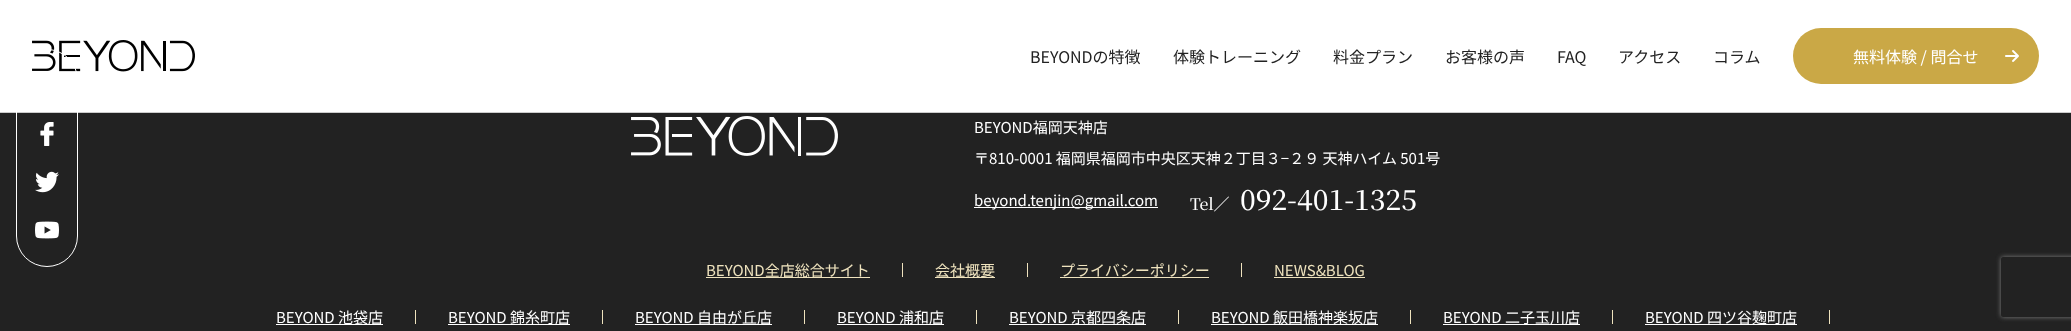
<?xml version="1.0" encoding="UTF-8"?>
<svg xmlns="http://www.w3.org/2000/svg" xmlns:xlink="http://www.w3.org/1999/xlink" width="2071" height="331">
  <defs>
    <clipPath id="clip1"><path d="M 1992 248 h 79 v 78 h -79 z m 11 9 h 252 c 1 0 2 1 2 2 v 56 c 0 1 -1 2 -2 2 h -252 c -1 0 -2 -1 -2 -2 v -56 c 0 -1 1 -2 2 -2 z" clip-rule="evenodd" /></clipPath>
  </defs>
  <rect width="100%" height="100%" fill="#222222" />
  <rect width="2071" height="112" fill="#ffffff" />
  <rect y="112" width="2071" height="1" fill="#cccccc" />
  <image x="32" y="40" width="163" height="32" xlink:href="image4.png" />
  <rect x="16.5" y="49.5" width="61" height="217" rx="30.5" fill="none" stroke="#ffffff" />
  <image x="40" y="122" width="14" height="24" xlink:href="image1.png" />
  <image x="35" y="171" width="24" height="22" xlink:href="image2.png" />
  <image x="35" y="221" width="24" height="18" xlink:href="image3.png" />
  <rect x="1793" y="28" width="246" height="56" rx="28" fill="#caa846" />
  <image x="2005" y="50" width="14" height="12" xlink:href="image5.png" />
  <image x="631" y="116" width="207" height="40" xlink:href="image6.png" />
  <rect x="974" y="207" width="184" height="1" fill="#ffffff" />
  <rect x="706" y="277" width="164" height="1" fill="#efe3be" />
  <rect x="902" y="263" width="1" height="14" fill="#efe3be" />
  <rect x="935" y="277" width="60" height="1" fill="#efe3be" />
  <rect x="1027" y="263" width="1" height="14" fill="#efe3be" />
  <rect x="1060" y="277" width="149" height="1" fill="#efe3be" />
  <rect x="1241" y="263" width="1" height="14" fill="#efe3be" />
  <rect x="1274" y="277" width="91" height="1" fill="#efe3be" />
  <rect x="276" y="324" width="107" height="1" fill="#ffffff" />
  <rect x="415" y="310" width="1" height="14" fill="#efe3be" />
  <rect x="448" y="324" width="122" height="1" fill="#ffffff" />
  <rect x="602" y="310" width="1" height="14" fill="#efe3be" />
  <rect x="635" y="324" width="137" height="1" fill="#ffffff" />
  <rect x="804" y="310" width="1" height="14" fill="#efe3be" />
  <rect x="837" y="324" width="107" height="1" fill="#ffffff" />
  <rect x="976" y="310" width="1" height="14" fill="#efe3be" />
  <rect x="1009" y="324" width="137" height="1" fill="#ffffff" />
  <rect x="1178" y="310" width="1" height="14" fill="#efe3be" />
  <rect x="1211" y="324" width="167" height="1" fill="#ffffff" />
  <rect x="1410" y="310" width="1" height="14" fill="#efe3be" />
  <rect x="1443" y="324" width="137" height="1" fill="#ffffff" />
  <rect x="1612" y="310" width="1" height="14" fill="#efe3be" />
  <rect x="1645" y="324" width="152" height="1" fill="#ffffff" />
  <rect x="1829" y="310" width="1" height="14" fill="#efe3be" />
  <g clip-path="url(#clip1)">
    <rect x="2001" y="257" width="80" height="60" rx="2" fill="#808080" filter="blur(2.5px)" />
  </g>
  <text x="1030" y="63" style="font-family: Noto Sans JP; font-size: 16px; fill: #222222">BEYONDの特徴</text>
  <text x="1173" y="63" style="font-family: Noto Sans JP; font-size: 16px; fill: #222222">体験トレーニング</text>
  <text x="1333" y="63" style="font-family: Noto Sans JP; font-size: 16px; fill: #222222">料金プラン</text>
  <text x="1445" y="63" style="font-family: Noto Sans JP; font-size: 16px; fill: #222222">お客様の声</text>
  <text x="1557" y="63" style="font-family: Noto Sans JP; font-size: 16px; fill: #222222">FAQ</text>
  <text x="1618" y="63" style="font-family: Noto Sans JP; font-size: 16px; fill: #222222">アクセス</text>
  <text x="1713" y="63" style="font-family: Noto Sans JP; font-size: 16px; fill: #222222">コラム</text>
  <text x="1853" y="63" style="font-family: Noto Sans JP; font-size: 16px; fill: #ffffff">無料体験 / 問合せ</text>
  <text x="974" y="133" style="font-family: Noto Sans JP; font-size: 15px; fill: #ffffff">BEYOND福岡天神店</text>
  <text x="974" y="164" style="font-family: Noto Sans JP; font-size: 15px; fill: #ffffff">〒810-0001 福岡県福岡市中央区天神２丁目３−２９ 天神ハイム 501号</text>
  <text x="974" y="206" style="font-family: Noto Sans JP; font-size: 15px; fill: #ffffff">beyond.tenjin@gmail.com</text>
  <text x="1190" y="210" style="font-family: Noto Serif JP; font-size: 16px; font-weight: 500; fill: #ffffff">Tel／</text>
  <text x="1240" y="210" style="font-family: Noto Serif JP; font-size: 28px; font-weight: 500; fill: #ffffff">092-401-1325</text>
  <text x="706" y="276" style="font-family: Noto Sans JP; font-size: 15px; fill: #efe3be">BEYOND全店総合サイト</text>
  <text x="935" y="276" style="font-family: Noto Sans JP; font-size: 15px; fill: #efe3be">会社概要</text>
  <text x="1060" y="276" style="font-family: Noto Sans JP; font-size: 15px; fill: #efe3be">プライバシーポリシー</text>
  <text x="1274" y="276" style="font-family: Noto Sans JP; font-size: 15px; fill: #efe3be">NEWS&amp;BLOG</text>
  <text x="276" y="323" style="font-family: Noto Sans JP; font-size: 15px; fill: #ffffff">BEYOND 池袋店</text>
  <text x="448" y="323" style="font-family: Noto Sans JP; font-size: 15px; fill: #ffffff">BEYOND 錦糸町店</text>
  <text x="635" y="323" style="font-family: Noto Sans JP; font-size: 15px; fill: #ffffff">BEYOND 自由が丘店</text>
  <text x="837" y="323" style="font-family: Noto Sans JP; font-size: 15px; fill: #ffffff">BEYOND 浦和店</text>
  <text x="1009" y="323" style="font-family: Noto Sans JP; font-size: 15px; fill: #ffffff">BEYOND 京都四条店</text>
  <text x="1211" y="323" style="font-family: Noto Sans JP; font-size: 15px; fill: #ffffff">BEYOND 飯田橋神楽坂店</text>
  <text x="1443" y="323" style="font-family: Noto Sans JP; font-size: 15px; fill: #ffffff">BEYOND 二子玉川店</text>
  <text x="1645" y="323" style="font-family: Noto Sans JP; font-size: 15px; fill: #ffffff">BEYOND 四ツ谷麹町店</text>
</svg>
